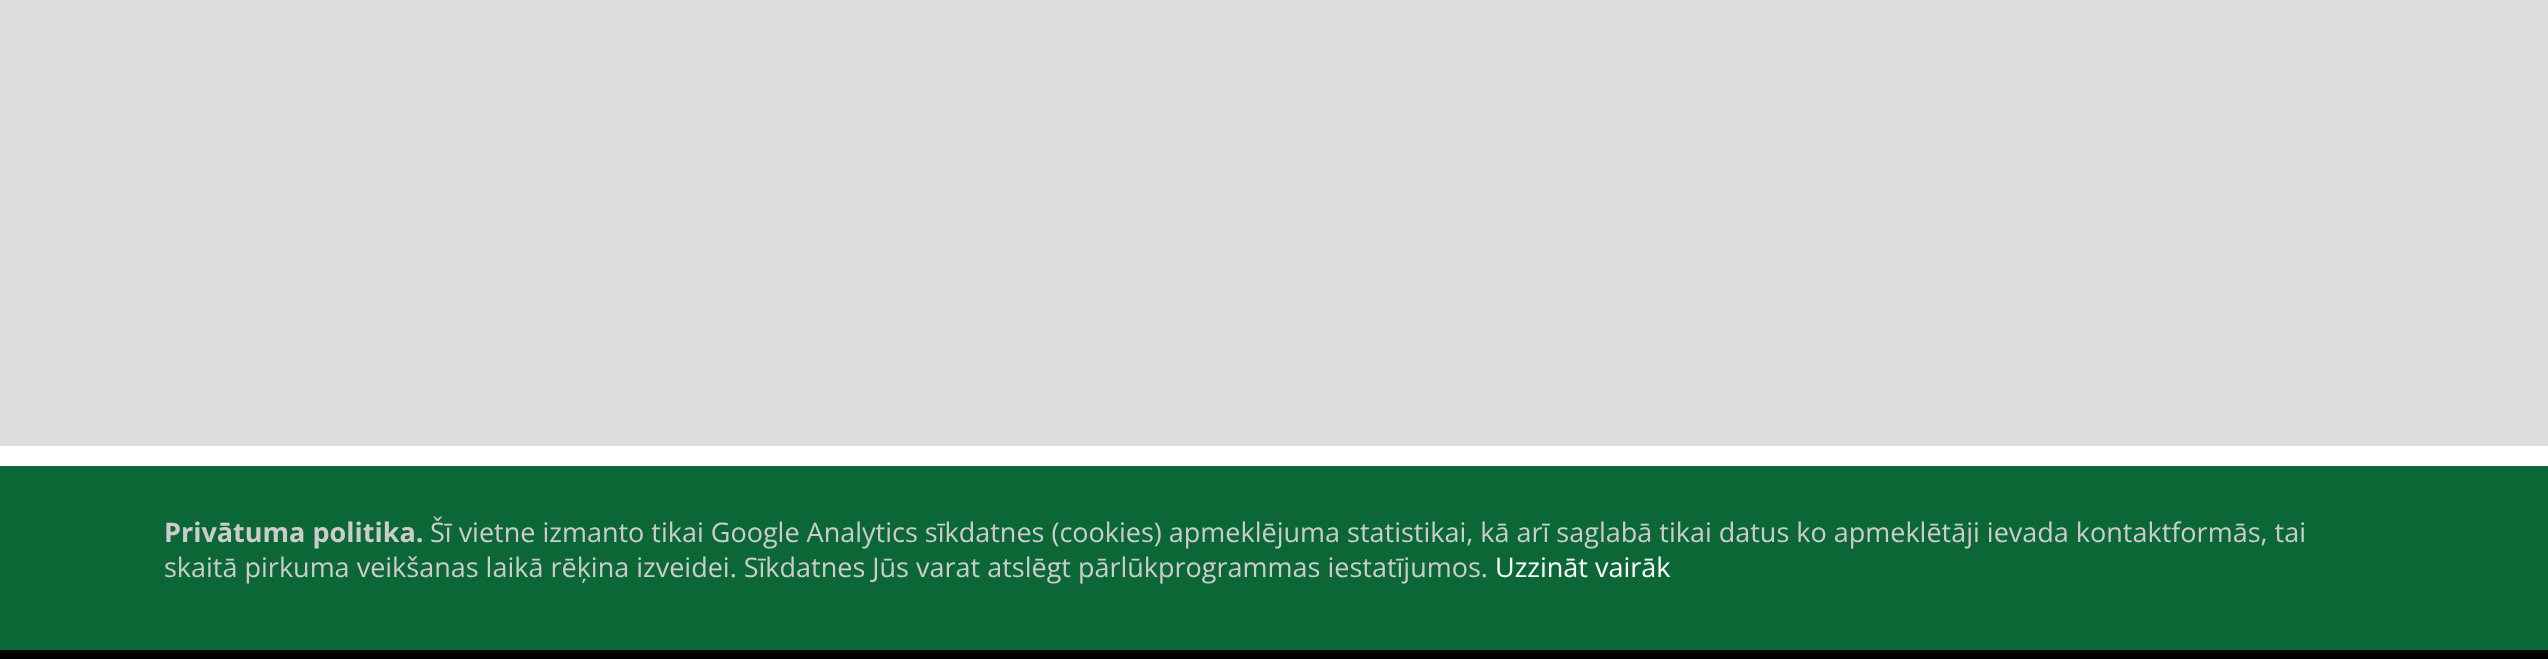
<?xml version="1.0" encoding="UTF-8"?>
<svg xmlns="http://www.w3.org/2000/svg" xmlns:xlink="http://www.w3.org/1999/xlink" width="2548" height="659">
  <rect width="100%" height="100%" fill="#dddddd" />
  <rect y="446" width="2548" height="20" fill="#ffffff" />
  <rect y="466" width="2548" height="184" fill="#0c6737" />
  <rect y="650" width="2548" height="9" fill="#000000" />
  <text x="164" y="542" style="font-family: Open Sans; font-size: 27px; font-weight: bold; fill: #cccccc">Privātuma politika.</text>
  <text x="430" y="542" style="font-family: Open Sans; font-size: 27px; fill: #cccccc">Šī vietne izmanto tikai Google Analytics sīkdatnes (cookies) apmeklējuma statistikai, kā arī saglabā tikai datus ko apmeklētāji ievada kontaktformās, tai</text>
  <text x="164" y="577" style="font-family: Open Sans; font-size: 27px; fill: #cccccc">skaitā pirkuma veikšanas laikā rēķina izveidei. Sīkdatnes Jūs varat atslēgt pārlūkprogrammas iestatījumos.</text>
  <text x="1495" y="577" style="font-family: Open Sans; font-size: 27px; fill: #ffffff">Uzzināt vairāk</text>
</svg>
